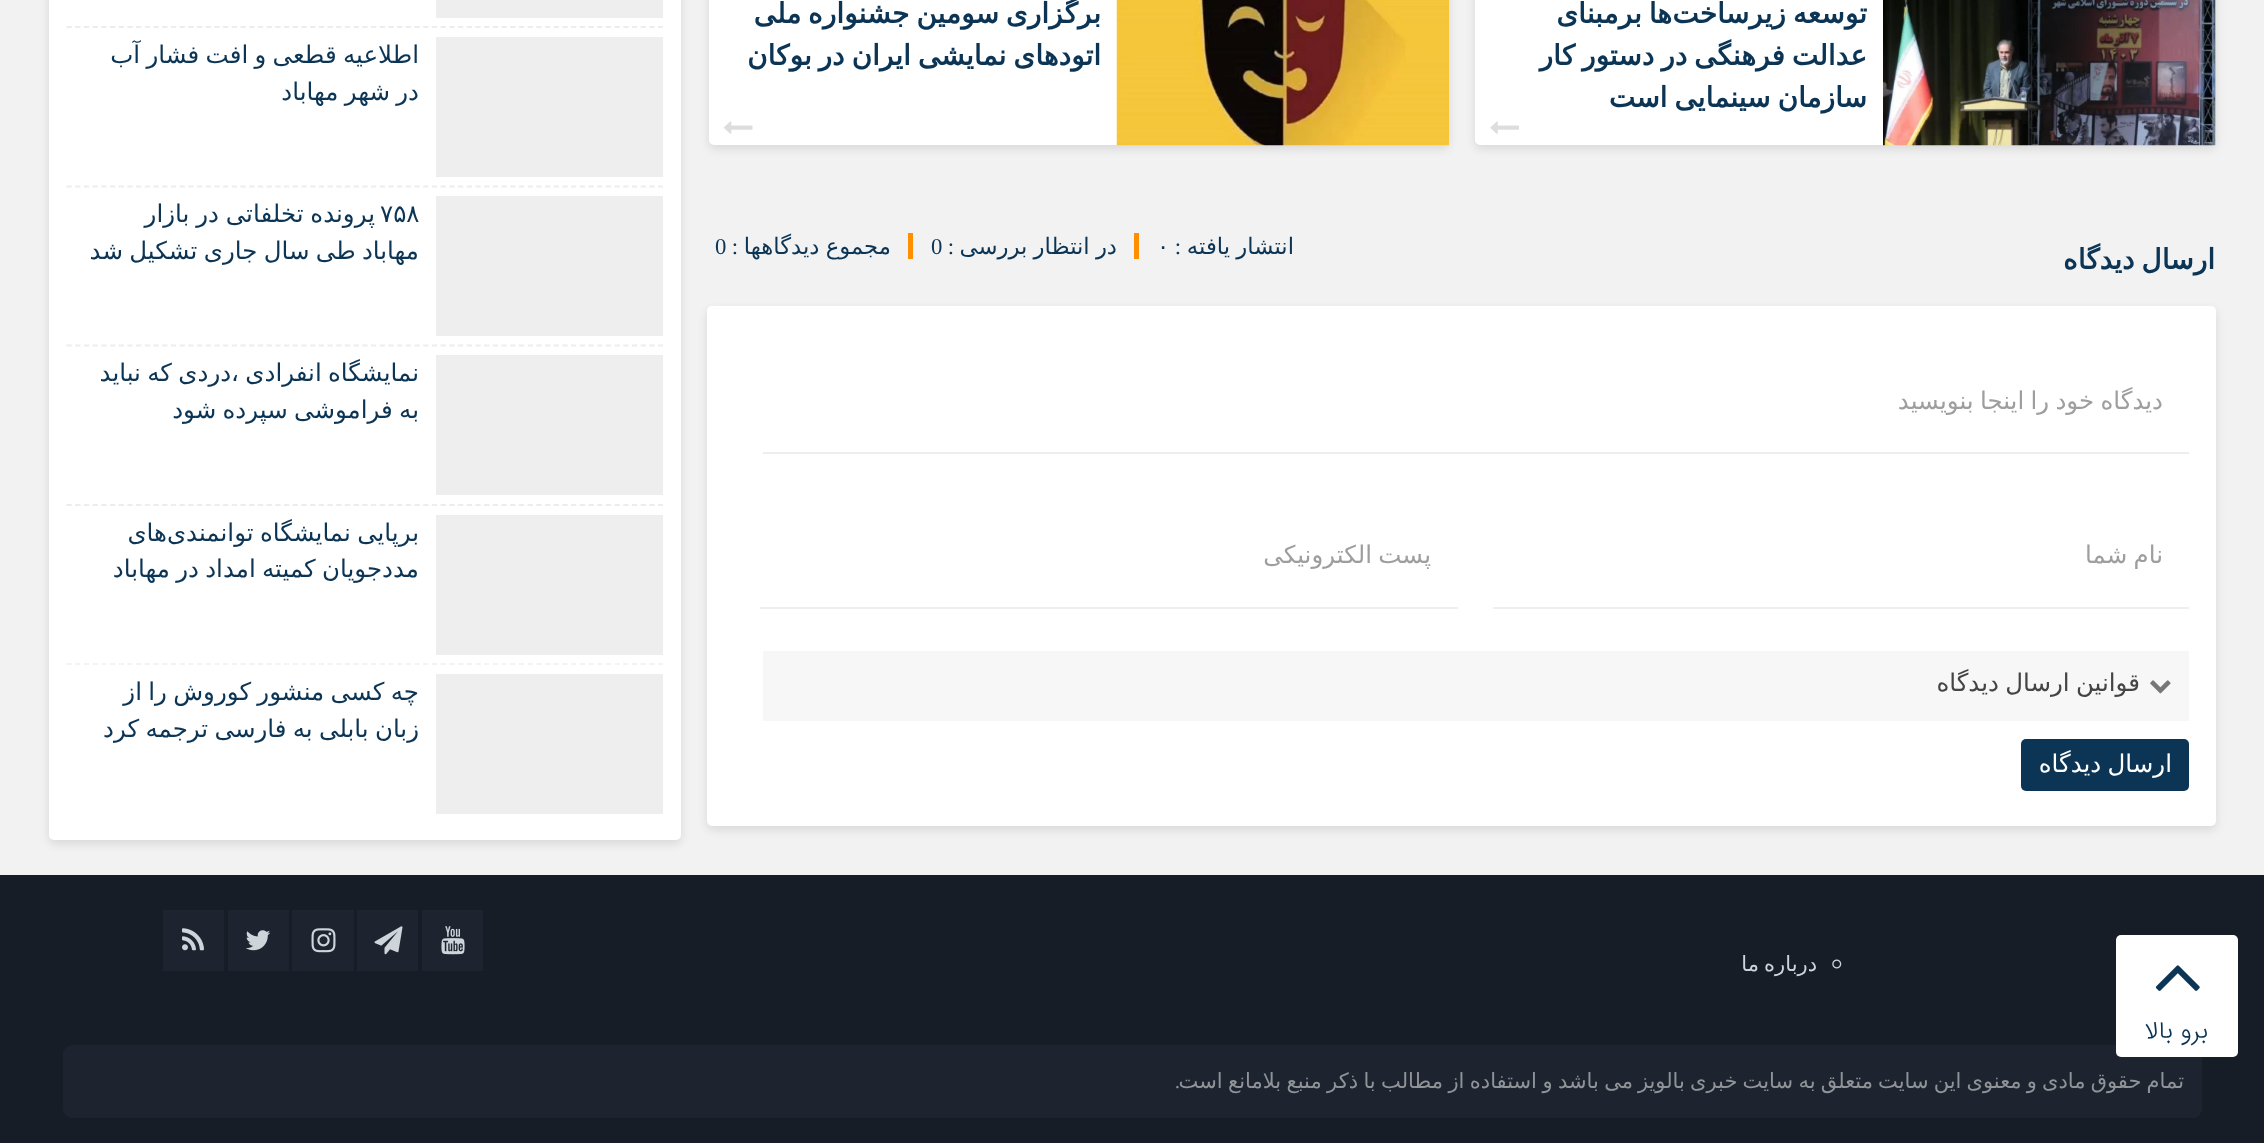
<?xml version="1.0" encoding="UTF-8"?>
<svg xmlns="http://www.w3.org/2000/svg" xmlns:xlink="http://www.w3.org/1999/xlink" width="2264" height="1143">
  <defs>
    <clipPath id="clip1"><rect x="84" y="37" width="334" height="73" /></clipPath>
    <clipPath id="clip2"><rect x="84" y="196" width="334" height="74" /></clipPath>
    <clipPath id="clip3"><rect x="84" y="355" width="334" height="74" /></clipPath>
    <clipPath id="clip4"><rect x="84" y="515" width="334" height="73" /></clipPath>
    <clipPath id="clip5"><rect x="84" y="674" width="334" height="73" /></clipPath>
  </defs>
  <rect width="100%" height="100%" fill="#f2f2f2" />
  <rect x="1475" y="-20" width="741" height="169" rx="5" fill="#000000" fill-opacity="0.1" filter="blur(5px)" />
  <rect x="1475" y="-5" width="741" height="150" rx="5" fill="#ffffff" />
  <rect x="2215" width="1" height="145" fill="#eeeeee" />
  <image x="1883" y="0" width="333" height="146" xlink:href="image1.png" />
  <image x="1490" y="121" width="29" height="13" xlink:href="image2.png" />
  <rect x="709" y="-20" width="740" height="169" rx="5" fill="#000000" fill-opacity="0.1" filter="blur(5px)" />
  <rect x="709" y="-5" width="740" height="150" rx="5" fill="#ffffff" />
  <image x="1116" y="0" width="333" height="146" xlink:href="image3.png" />
  <image x="724" y="121" width="29" height="13" xlink:href="image4.png" />
  <rect x="1134" y="233" width="5" height="26" fill="#fe8f00" />
  <rect x="908" y="233" width="5" height="26" fill="#fe8f00" />
  <rect x="707" y="310" width="1509" height="520" rx="5" fill="#000000" fill-opacity="0.1" filter="blur(5px)" />
  <rect x="707" y="306" width="1509" height="520" rx="5" fill="#ffffff" />
  <rect x="763" y="452" width="1426" height="2" fill="#eeeeee" />
  <rect x="1493" y="607" width="696" height="2" fill="#eeeeee" />
  <rect x="760" y="607" width="698" height="2" fill="#eeeeee" />
  <rect x="763" y="651" width="1426" height="70" fill="#f7f7f7" />
  <image x="2150" y="680" width="21" height="14" xlink:href="image5.png" />
  <rect x="2021" y="739" width="168" height="52" rx="5" fill="#0c3555" />
  <rect x="49" y="-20" width="632" height="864" rx="5" fill="#000000" fill-opacity="0.1" filter="blur(5px)" />
  <rect x="49" y="-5" width="632" height="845" rx="5" fill="#ffffff" />
  <path d="M 66.5 27 h 596.5" fill="none" stroke="#ededed" stroke-width="1.8" stroke-dasharray="5.25 3.45" />
  <rect x="436" width="227" height="18" fill="#eeeeee" />
  <path d="M 66.5 186.5 h 596.5" fill="none" stroke="#ededed" stroke-width="1.8" stroke-dasharray="5.25 3.45" />
  <rect x="436" y="37" width="227" height="140" fill="#eeeeee" />
  <path d="M 66.5 345.5 h 596.5" fill="none" stroke="#ededed" stroke-width="1.8" stroke-dasharray="5.25 3.45" />
  <rect x="436" y="196" width="227" height="140" fill="#eeeeee" />
  <path d="M 66.5 505 h 596.5" fill="none" stroke="#ededed" stroke-width="1.8" stroke-dasharray="5.25 3.45" />
  <rect x="436" y="355" width="227" height="140" fill="#eeeeee" />
  <path d="M 66.5 664 h 596.5" fill="none" stroke="#f3f3f3" stroke-width="1.8" stroke-dasharray="5.25 3.45" />
  <rect x="436" y="515" width="227" height="140" fill="#eeeeee" />
  <rect x="436" y="674" width="227" height="140" fill="#eeeeee" />
  <rect y="875" width="2264" height="268" fill="#161d27" />
  <image x="1832" y="959" width="10" height="10" xlink:href="image6.png" />
  <rect x="422" y="910" width="61" height="61" fill="#1d242f" />
  <image x="441" y="926" width="24" height="29" xlink:href="image7.png" />
  <rect x="357" y="910" width="61" height="61" fill="#1d242f" />
  <image x="374" y="926" width="29" height="29" xlink:href="image8.png" />
  <rect x="292" y="910" width="62" height="61" fill="#1d242f" />
  <image x="311" y="928" width="25" height="25" xlink:href="image9.png" />
  <rect x="228" y="910" width="61" height="61" fill="#1d242f" />
  <image x="245" y="930" width="26" height="21" xlink:href="image10.png" />
  <rect x="163" y="910" width="61" height="61" fill="#1d242f" />
  <image x="182" y="928" width="22" height="23" xlink:href="image11.png" />
  <rect x="63" y="1045" width="2139" height="73" rx="9" fill="#1d242f" />
  <rect x="2116" y="935" width="122" height="122" rx="5" fill="#ffffff" />
  <image x="2155" y="965" width="45" height="26" xlink:href="image12.png" />
  <text x="1867" y="23" word-spacing="-2" style="font-family: DejaVu Sans; font-size: 28px; font-weight: bold; direction: rtl; fill: #0c3555">توسعه زیرساخت</text>
  <text x="1672" y="23" word-spacing="-2" style="font-family: DejaVu Sans; font-size: 28px; font-weight: bold; direction: rtl; fill: #0c3555">ها برمبنای</text>
  <text x="1867" y="65" word-spacing="-2" style="font-family: DejaVu Sans; font-size: 28px; font-weight: bold; direction: rtl; fill: #0c3555">عدالت فرهنگی در دستور کار</text>
  <text x="1867" y="107" word-spacing="-2" style="font-family: DejaVu Sans; font-size: 28px; font-weight: bold; direction: rtl; fill: #0c3555">سازمان سینمایی است</text>
  <text x="1101" y="23" word-spacing="-2" style="font-family: DejaVu Sans; font-size: 28px; font-weight: bold; direction: rtl; fill: #0c3555">برگزاری سومین جشنواره ملی</text>
  <text x="1101" y="65" word-spacing="-2" style="font-family: DejaVu Sans; font-size: 28px; font-weight: bold; direction: rtl; fill: #0c3555">اتودهای نمایشی ایران در بوکان</text>
  <text x="2215" y="269" word-spacing="-2" style="font-family: DejaVu Sans; font-size: 28px; font-weight: bold; direction: rtl; fill: #0c3555">ارسال دیدگاه</text>
  <text x="1294" y="254" word-spacing="-1" style="font-family: DejaVu Sans; font-size: 22.75px; direction: rtl; fill: #0c3555">انتشار یافته</text>
  <text x="1181" y="254" style="font-family: Liberation Serif; font-size: 22.75px; direction: rtl; fill: #0c3555">:</text>
  <text x="1157" y="254" style="font-family: DejaVu Sans; font-size: 22.75px; fill: #0c3555">۰</text>
  <text x="1117" y="254" word-spacing="-1" style="font-family: DejaVu Sans; font-size: 22.75px; direction: rtl; fill: #0c3555">در انتظار بررسی</text>
  <text x="954" y="254" style="font-family: Liberation Serif; font-size: 22.75px; direction: rtl; fill: #0c3555">:</text>
  <text x="931" y="254" style="font-family: Liberation Serif; font-size: 22.75px; fill: #0c3555">0</text>
  <text x="891" y="254" word-spacing="-1" style="font-family: DejaVu Sans; font-size: 22.75px; direction: rtl; fill: #0c3555">مجموع دیدگاهها</text>
  <text x="738" y="254" style="font-family: Liberation Serif; font-size: 22.75px; direction: rtl; fill: #0c3555">:</text>
  <text x="715" y="254" style="font-family: Liberation Serif; font-size: 22.75px; fill: #0c3555">0</text>
  <text x="2163" y="409" word-spacing="-1.5" style="font-family: DejaVu Sans; font-size: 24.5px; direction: rtl; fill: #9e9e9e">دیدگاه خود را اینجا بنویسید</text>
  <text x="2163" y="563" word-spacing="-1.5" style="font-family: DejaVu Sans; font-size: 24.5px; direction: rtl; fill: #9e9e9e">نام شما</text>
  <text x="1431" y="563" word-spacing="-1.5" style="font-family: DejaVu Sans; font-size: 24.5px; direction: rtl; fill: #9e9e9e">پست الکترونیکی</text>
  <text x="2140" y="691" word-spacing="-1.5" style="font-family: DejaVu Sans; font-size: 24.5px; direction: rtl; fill: #444444">قوانین ارسال دیدگاه</text>
  <text x="2172" y="772" word-spacing="-1.5" style="font-family: DejaVu Sans; font-size: 24.5px; direction: rtl; fill: #ffffff">ارسال دیدگاه</text>
  <g clip-path="url(#clip1)">
    <text x="419" y="63" word-spacing="-1.5" style="font-family: DejaVu Sans; font-size: 24.5px; direction: rtl; fill: #0c3555">اطلاعیه قطعی و افت فشار آب</text>
    <text x="419" y="100" word-spacing="-1.5" style="font-family: DejaVu Sans; font-size: 24.5px; direction: rtl; fill: #0c3555">در شهر مهاباد</text>
  </g>
  <text x="380" y="222" style="font-family: DejaVu Sans; font-size: 24.5px; fill: #0c3555">۷۵۸</text>
  <text x="375" y="222" word-spacing="-1" style="font-family: DejaVu Sans; font-size: 24.5px; direction: rtl; fill: #0c3555">پرونده تخلفاتی در بازار</text>
  <g clip-path="url(#clip2)">
    <text x="419" y="259" word-spacing="-1.5" style="font-family: DejaVu Sans; font-size: 24.5px; direction: rtl; fill: #0c3555">مهاباد طی سال جاری تشکیل شد</text>
  </g>
  <g clip-path="url(#clip3)">
    <text x="419" y="381" word-spacing="-1.5" style="font-family: DejaVu Sans; font-size: 24.5px; direction: rtl; fill: #0c3555">نمایشگاه انفرادی ،دردی که نباید</text>
    <text x="419" y="418" word-spacing="-1.5" style="font-family: DejaVu Sans; font-size: 24.5px; direction: rtl; fill: #0c3555">به فراموشی سپرده شود</text>
  </g>
  <g clip-path="url(#clip4)">
    <text x="419" y="541" word-spacing="-1.5" style="font-family: DejaVu Sans; font-size: 24.5px; direction: rtl; fill: #0c3555">برپایی نمایشگاه توانمندی</text>
  </g>
  <text x="167" y="541" style="font-family: DejaVu Sans; font-size: 24.5px; direction: rtl; fill: #0c3555">های</text>
  <g clip-path="url(#clip4)">
    <text x="419" y="577" word-spacing="-1.5" style="font-family: DejaVu Sans; font-size: 24.5px; direction: rtl; fill: #0c3555">مددجویان کمیته امداد در مهاباد</text>
  </g>
  <g clip-path="url(#clip5)">
    <text x="419" y="700" word-spacing="-1.5" style="font-family: DejaVu Sans; font-size: 24.5px; direction: rtl; fill: #0c3555">چه کسی منشور کوروش را از</text>
    <text x="419" y="737" word-spacing="-1.5" style="font-family: DejaVu Sans; font-size: 24.5px; direction: rtl; fill: #0c3555">زبان بابلی به فارسی ترجمه کرد</text>
  </g>
  <text x="1817" y="971" word-spacing="-1.5" style="font-family: DejaVu Sans; font-size: 21px; direction: rtl; fill: #ced4da">درباره ما</text>
  <text x="2184" y="1088" word-spacing="-1.5" style="font-family: DejaVu Sans; font-size: 21px; direction: rtl; fill: #909499">تمام حقوق مادی و معنوی این سایت متعلق به</text>
  <text x="1793" y="1088" word-spacing="-1.5" style="font-family: DejaVu Sans; font-size: 21px; direction: rtl; fill: #909499">سایت خبری بالویز</text>
  <text x="1633" y="1088" word-spacing="-1.25" style="font-family: DejaVu Sans; font-size: 21px; direction: rtl; fill: #909499">می باشد و استفاده از مطالب با ذکر منبع بلامانع است</text>
  <text x="1180" y="1088" style="font-family: Liberation Serif; font-size: 21px; direction: rtl; fill: #909499">.</text>
  <text x="2208" y="1038" style="font-family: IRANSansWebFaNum; font-size: 24.5px; font-weight: 300; direction: rtl; fill: #0c3555">برو بالا</text>
</svg>
